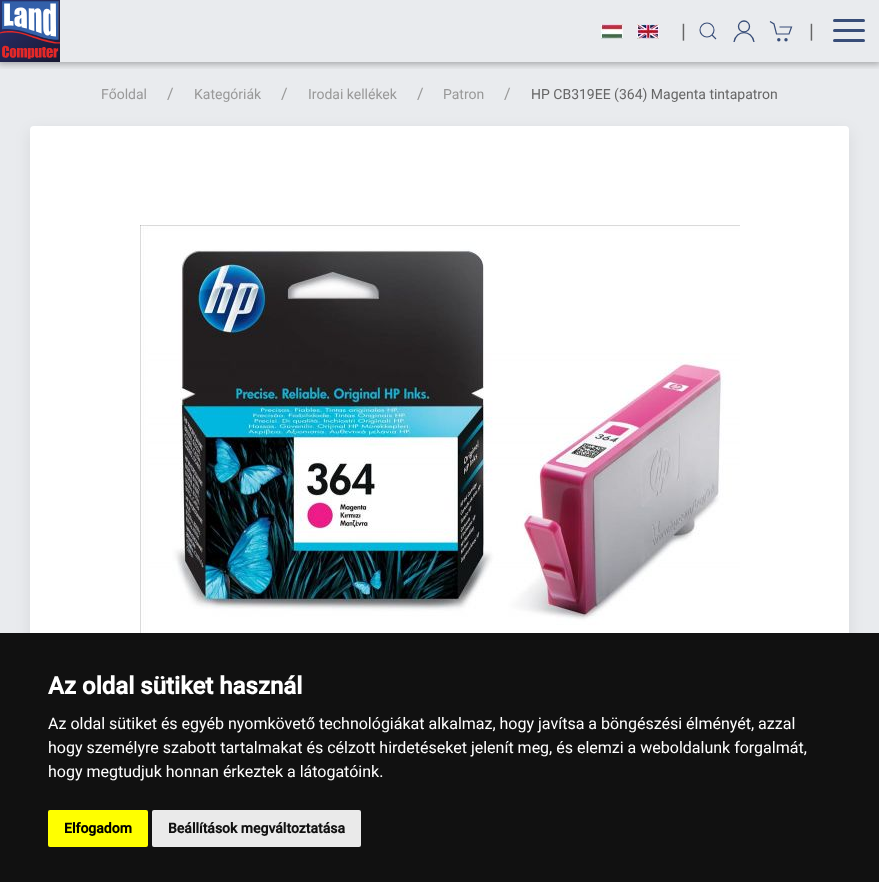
<?xml version="1.0" encoding="UTF-8"?>
<svg xmlns="http://www.w3.org/2000/svg" xmlns:xlink="http://www.w3.org/1999/xlink" width="879" height="882">
  <defs>
    <clipPath id="clip1"><rect x="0" y="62" width="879" height="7" /></clipPath>
  </defs>
  <rect width="100%" height="100%" fill="#e9ebee" />
  <g clip-path="url(#clip1)">
    <rect x="-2" y="-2" width="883" height="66" fill="#000000" fill-opacity="0.3" filter="blur(3.5px)" />
  </g>
  <image x="0" y="0" width="60" height="62" xlink:href="image1.png" />
  <image x="601" y="24" width="22" height="15" xlink:href="image2.png" />
  <image x="637" y="24" width="22" height="15" xlink:href="image3.png" />
  <circle cx="707" cy="30" r="7" fill="none" stroke="#384d78" stroke-width="1.1" />
  <path d="M 712 35 l 4 4 z" fill="none" stroke="#384d78" stroke-width="1.1" />
  <circle cx="744" cy="26.5" r="5.5" fill="none" stroke="#384d78" stroke-width="1.3" />
  <path d="M 734 42 c 2 -12.5 18 -12.5 20 0" fill="none" stroke="#384d78" stroke-width="1.3" />
  <path d="M 770 21.5 l 4 2.5 l 2.5 10 h 12.5 l 2.5 -7 h -12" fill="none" stroke="#384d78" stroke-width="1.2" />
  <circle cx="778.8" cy="39.8" r="1.7" fill="#384d78" />
  <circle cx="786" cy="39.8" r="1.7" fill="#384d78" />
  <rect x="833" y="19" width="32" height="3" rx="1.5" fill="#384d78" />
  <rect x="833" y="29" width="32" height="3" rx="1.5" fill="#384d78" />
  <rect x="833" y="39" width="32" height="3" rx="1.5" fill="#384d78" />
  <rect x="30" y="131" width="819" height="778" rx="4" fill="#000000" fill-opacity="0.08" filter="blur(7.5px)" />
  <rect x="30" y="126" width="819" height="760" rx="4" fill="#ffffff" />
  <image x="140" y="225" width="600" height="408" xlink:href="image4.png" />
  <rect y="633" width="879" height="249" fill="#111111" />
  <rect x="48" y="810" width="100" height="37" rx="2" fill="#ffff00" />
  <rect x="152" y="810" width="209" height="37" rx="2" fill="#eaeaea" />
  <text x="681" y="38" style="font-family: Roboto; font-size: 20px; fill: #666666">|</text>
  <text x="809" y="38" style="font-family: Roboto; font-size: 20px; fill: #666666">|</text>
  <text x="101" y="99" style="font-family: Roboto; font-size: 14px; fill: #999999">Főoldal</text>
  <text x="167" y="99" style="font-family: Roboto; font-size: 16px; fill: #999999">/</text>
  <text x="194" y="99" style="font-family: Roboto; font-size: 14px; fill: #999999">Kategóriák</text>
  <text x="281" y="99" style="font-family: Roboto; font-size: 16px; fill: #999999">/</text>
  <text x="308" y="99" style="font-family: Roboto; font-size: 14px; fill: #999999">Irodai kellékek</text>
  <text x="417" y="99" style="font-family: Roboto; font-size: 16px; fill: #999999">/</text>
  <text x="443" y="99" style="font-family: Roboto; font-size: 14px; fill: #999999">Patron</text>
  <text x="504" y="99" style="font-family: Roboto; font-size: 16px; fill: #999999">/</text>
  <text x="531" y="99" style="font-family: Roboto; font-size: 14px; fill: #666666">HP CB319EE (364) Magenta tintapatron</text>
  <text x="48" y="694" style="font-family: Roboto; font-size: 24px; font-weight: bold; fill: #ffffff">Az oldal sütiket használ</text>
  <text x="48" y="729" style="font-family: Roboto; font-size: 16px; fill: #ffffff">Az oldal sütiket és egyéb nyomkövető technológiákat alkalmaz, hogy javítsa a böngészési élményét, azzal</text>
  <text x="48" y="753" style="font-family: Roboto; font-size: 16px; fill: #ffffff">hogy személyre szabott tartalmakat és célzott hirdetéseket jelenít meg, és elemzi a weboldalunk forgalmát,</text>
  <text x="48" y="777" style="font-family: Roboto; font-size: 16px; fill: #ffffff">hogy megtudjuk honnan érkeztek a látogatóink.</text>
  <text x="64" y="833" style="font-family: Roboto; font-size: 14px; font-weight: bold; fill: #000000">Elfogadom</text>
  <text x="168" y="833" style="font-family: Roboto; font-size: 14px; font-weight: bold; fill: #111111">Beállítások megváltoztatása</text>
</svg>
